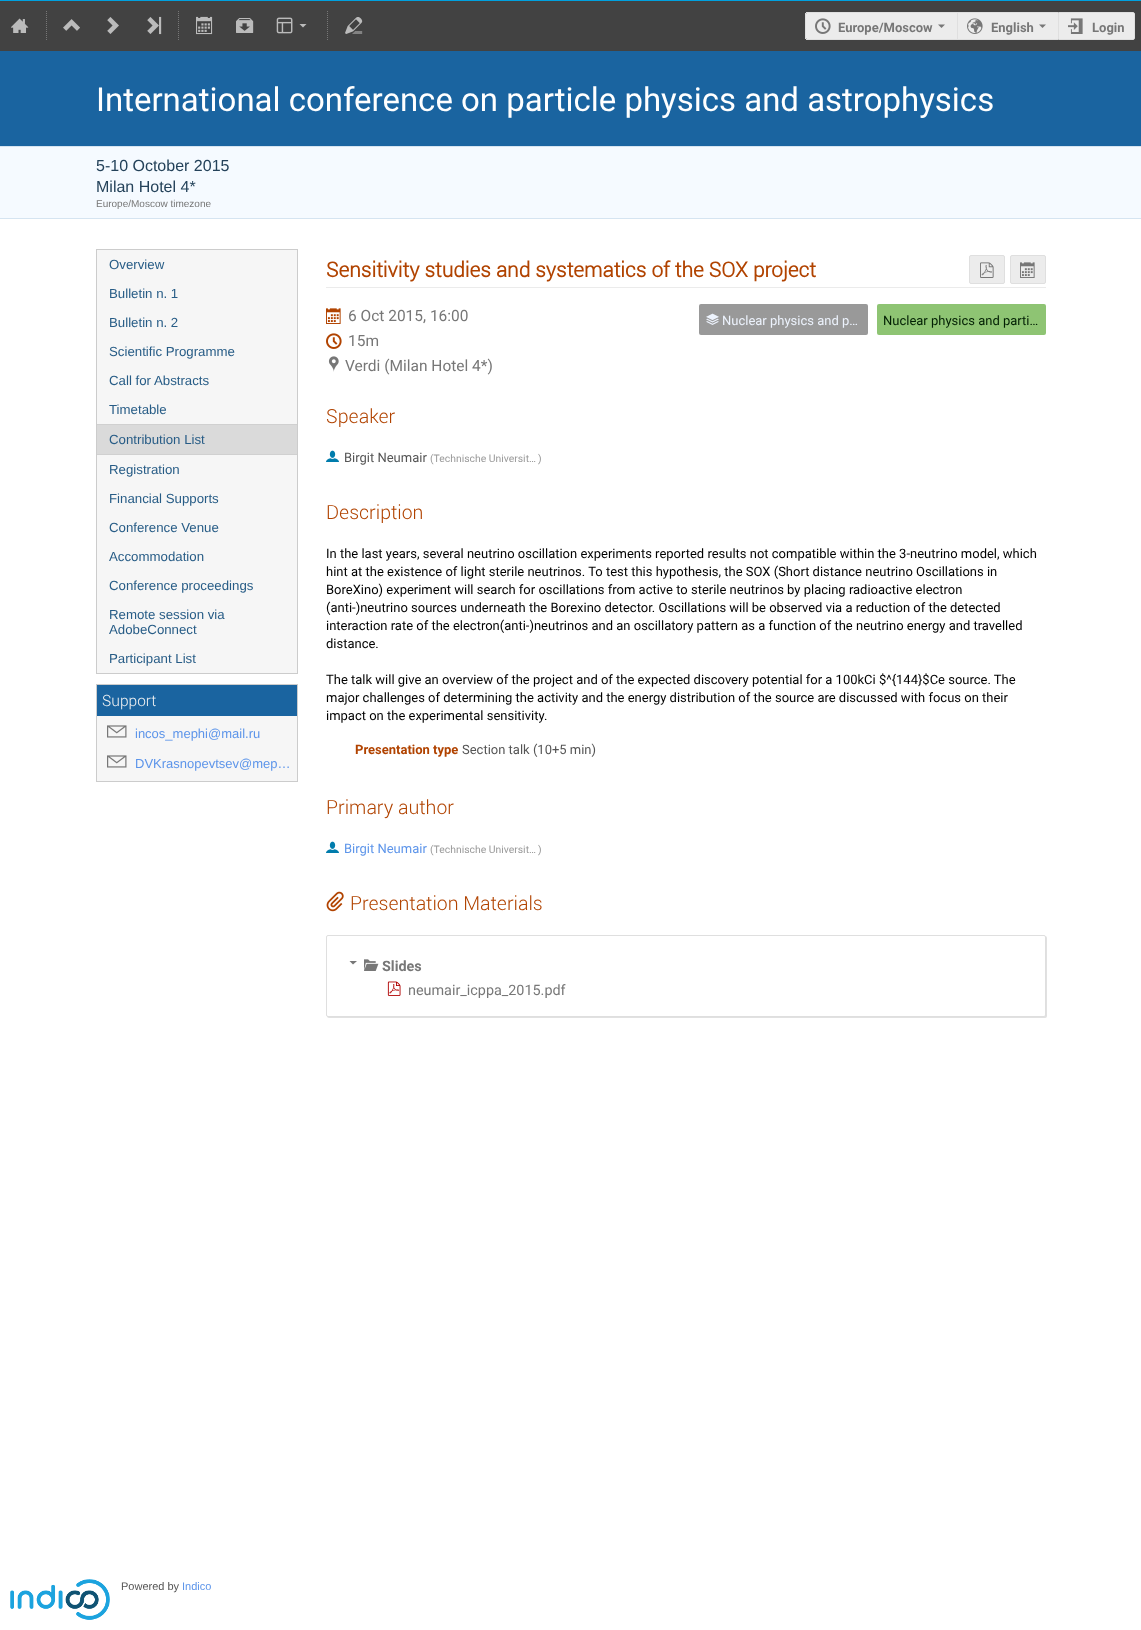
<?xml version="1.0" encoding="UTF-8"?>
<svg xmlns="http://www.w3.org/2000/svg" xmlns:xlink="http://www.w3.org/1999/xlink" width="1141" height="1630">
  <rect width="100%" height="100%" fill="#ffffff" />
  <rect y="1" width="1141" height="50" fill="#424242" />
  <rect width="1141" height="1" fill="#00a1df" />
  <image x="11" y="18" width="18" height="15" xlink:href="image1.png" />
  <path d="M 46.5 11 v 30" fill="none" stroke="#777777" stroke-dasharray="1 1" />
  <image x="63" y="19" width="17" height="12" xlink:href="image2.png" />
  <image x="107" y="17" width="12" height="17" xlink:href="image3.png" />
  <image x="147" y="16" width="15" height="19" xlink:href="image4.png" />
  <path d="M 178.5 11 v 30" fill="none" stroke="#777777" stroke-dasharray="1 1" />
  <image x="196" y="16" width="17" height="19" xlink:href="image5.png" />
  <image x="236" y="18" width="18" height="15" xlink:href="image6.png" />
  <image x="276" y="17" width="17" height="17" xlink:href="image7.png" />
  <path d="M 299.5 24 l 3.5 3.5 l 3.5 -3.5 z" fill="#bbbbbb" />
  <path d="M 327.5 11 v 30" fill="none" stroke="#777777" stroke-dasharray="1 1" />
  <image x="345" y="17" width="18" height="17" xlink:href="image8.png" />
  <path d="M 807 13 h 150 v 26 h -150 c -0.5 0 -1 -0.5 -1 -1 v -24 c 0 -0.5 0.5 -1 1 -1 z" fill="#ececec" />
  <rect x="806" y="12" width="252" height="1" fill="#dfdfdf" />
  <rect x="806" y="39" width="252" height="1" fill="#dfdfdf" />
  <rect x="805" y="13" width="1" height="26" fill="#dfdfdf" />
  <image x="815" y="18" width="16" height="16" xlink:href="image9.png" />
  <path d="M 938 24.5 l 3.5 3.5 l 3.5 -3.5 z" fill="#777777" />
  <rect x="958" y="13" width="100" height="26" fill="#ececec" />
  <rect x="957" y="12" width="1" height="28" fill="#dfdfdf" />
  <image x="967" y="18" width="16" height="16" xlink:href="image10.png" />
  <path d="M 1039 24.5 l 3.5 3.5 l 3.5 -3.5 z" fill="#777777" />
  <path d="M 1058.5 12.5 h 74.5 c 1 0 1.5 0.5 1.5 1.5 v 24 c 0 1 -0.5 1.5 -1.5 1.5 h -74.5 z" fill="#ececec" stroke="#dfdfdf" />
  <image x="1068" y="18" width="15" height="16" xlink:href="image11.png" />
  <rect y="51" width="1141" height="95" fill="#1a64a0" />
  <rect y="147" width="1141" height="71" fill="#f5faff" />
  <rect y="146" width="1141" height="1" fill="#d5e4f1" />
  <rect y="218" width="1141" height="1" fill="#d5e4f1" />
  <rect x="96.5" y="249.5" width="201" height="424" fill="#f6f6f6" stroke="#cccccc" />
  <rect x="97" y="425" width="200" height="29" fill="#dadada" />
  <rect x="97" y="424" width="200" height="1" fill="#d0d0d0" />
  <rect x="97" y="454" width="200" height="1" fill="#d0d0d0" />
  <rect x="97" y="716" width="200" height="65" fill="#f6f6f6" />
  <rect x="96.5" y="684.5" width="201" height="97" fill="none" stroke="#cccccc" />
  <rect x="97" y="685" width="200" height="31" fill="#1a64a0" />
  <image x="107" y="725" width="20" height="13" xlink:href="image12.png" />
  <image x="107" y="755" width="20" height="13" xlink:href="image12.png" />
  <rect x="326" y="287" width="720" height="1" fill="#ebebeb" />
  <rect x="969.5" y="255.5" width="35" height="28" rx="1.5" fill="#ececec" stroke="#dfdfdf" />
  <image x="980" y="262" width="14" height="16" xlink:href="image13.png" />
  <rect x="1010.5" y="255.5" width="35" height="28" rx="1.5" fill="#ececec" stroke="#dfdfdf" />
  <image x="1020" y="262" width="15" height="16" xlink:href="image14.png" />
  <image x="326" y="308" width="15" height="16" xlink:href="image15.png" />
  <image x="326" y="333" width="16" height="16" xlink:href="image16.png" />
  <image x="328" y="356" width="11" height="16" xlink:href="image17.png" />
  <rect x="699" y="304" width="169" height="31" rx="2" fill="#999999" />
  <image x="706" y="313" width="13" height="12" xlink:href="image18.png" />
  <rect x="877" y="304" width="169" height="31" rx="2" fill="#8ec473" />
  <image x="326" y="450" width="13" height="12" xlink:href="image19.png" />
  <image x="326" y="841" width="13" height="12" xlink:href="image19.png" />
  <image x="326" y="891" width="18" height="21" xlink:href="image20.png" />
  <rect x="327" y="936" width="720" height="82" rx="2" fill="#e1e1e1" filter="blur(0.5px)" />
  <rect x="326.5" y="935.5" width="719" height="81" rx="1.5" fill="#ffffff" stroke="#dfdfdf" />
  <path d="M 349.5 961 l 3.5 3.5 l 4 -3.5 z" fill="#777777" />
  <image x="364" y="959" width="15" height="12" xlink:href="image21.png" />
  <image x="387" y="981" width="14" height="15" xlink:href="image22.png" />
  <image x="10" y="1579" width="100" height="41" xlink:href="image23.png" />
  <text x="838" y="32" style="font-family: Roboto; font-size: 13px; font-weight: bold; fill: #777777">Europe/Moscow</text>
  <text x="991" y="32" style="font-family: Roboto; font-size: 13px; font-weight: bold; fill: #777777">English</text>
  <text x="1092" y="32" style="font-family: Roboto; font-size: 13px; font-weight: bold; fill: #777777">Login</text>
  <text x="96" y="111" style="font-family: Roboto; font-size: 33px; fill: #ffffff">International conference on particle physics and astrophysics</text>
  <text x="96" y="171" style="font-family: Liberation Sans; font-size: 16px; fill: #24425a">5-10 October 2015</text>
  <text x="96" y="192" style="font-family: Liberation Sans; font-size: 16px; fill: #24425a">Milan Hotel 4*</text>
  <text x="96" y="207" style="font-family: Liberation Sans; font-size: 10px; fill: #777777">Europe/Moscow timezone</text>
  <text x="109" y="269" style="font-family: 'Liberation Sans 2'; font-size: 13.25px; fill: #275c86">Overview</text>
  <text x="109" y="298" style="font-family: 'Liberation Sans 2'; font-size: 13.25px; fill: #275c86">Bulletin n. 1</text>
  <text x="109" y="327" style="font-family: 'Liberation Sans 2'; font-size: 13.25px; fill: #275c86">Bulletin n. 2</text>
  <text x="109" y="356" style="font-family: 'Liberation Sans 2'; font-size: 13.25px; fill: #275c86">Scientific Programme</text>
  <text x="109" y="385" style="font-family: 'Liberation Sans 2'; font-size: 13.25px; fill: #275c86">Call for Abstracts</text>
  <text x="109" y="414" style="font-family: 'Liberation Sans 2'; font-size: 13.25px; fill: #275c86">Timetable</text>
  <text x="109" y="444" style="font-family: 'Liberation Sans 2'; font-size: 13.25px; fill: #275c86">Contribution List</text>
  <text x="109" y="474" style="font-family: 'Liberation Sans 2'; font-size: 13.25px; fill: #275c86">Registration</text>
  <text x="109" y="503" style="font-family: 'Liberation Sans 2'; font-size: 13.25px; fill: #275c86">Financial Supports</text>
  <text x="109" y="532" style="font-family: 'Liberation Sans 2'; font-size: 13.25px; fill: #275c86">Conference Venue</text>
  <text x="109" y="561" style="font-family: 'Liberation Sans 2'; font-size: 13.25px; fill: #275c86">Accommodation</text>
  <text x="109" y="590" style="font-family: 'Liberation Sans 2'; font-size: 13.25px; fill: #275c86">Conference proceedings</text>
  <text x="109" y="619" style="font-family: 'Liberation Sans 2'; font-size: 13.25px; fill: #275c86">Remote session via</text>
  <text x="109" y="634" style="font-family: 'Liberation Sans 2'; font-size: 13.25px; fill: #275c86">AdobeConnect</text>
  <text x="109" y="663" style="font-family: 'Liberation Sans 2'; font-size: 13.25px; fill: #275c86">Participant List</text>
  <text x="102" y="706" style="font-family: Roboto; font-size: 15.5px; font-weight: 300; fill: #f3f3f3">Support</text>
  <text x="135" y="738" style="font-family: Liberation Sans; font-size: 13px; fill: #5d95ea">incos_mephi@mail.ru</text>
  <text x="135" y="768" style="font-family: Liberation Sans; font-size: 13px; fill: #5d95ea">DVKrasnopevtsev@mep…</text>
  <text x="326" y="277" style="font-family: 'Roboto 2'; font-size: 20.8px; font-weight: bold; fill: #b14300">Sensitivity studies and systematics of the SOX project</text>
  <text x="348" y="321" style="font-family: Roboto; font-size: 15.5px; fill: #777777">6 Oct 2015, 16:00</text>
  <text x="348" y="346" style="font-family: Roboto; font-size: 15.5px; fill: #777777">15m</text>
  <text x="345" y="371" style="font-family: Roboto; font-size: 15.5px; fill: #777777">Verdi (Milan Hotel 4*)</text>
  <text x="722" y="325" style="font-family: Roboto; font-size: 13px; fill: #edf3fd">Nuclear physics and p…</text>
  <text x="883" y="325" style="font-family: Roboto; font-size: 13px; fill: #021f03">Nuclear physics and parti…</text>
  <text x="326" y="423" style="font-family: Roboto; font-size: 19.5px; font-weight: 300; fill: #b14300">Speaker</text>
  <text x="344" y="462" style="font-family: Roboto; font-size: 13px; fill: #555555">Birgit Neumair</text>
  <text x="430" y="462" style="font-family: Roboto; font-size: 10.4px; fill: #999999">(Technische Universit…</text>
  <text x="538" y="462" style="font-family: Roboto; font-size: 10.4px; fill: #999999">)</text>
  <text x="326" y="519" style="font-family: Roboto; font-size: 19.5px; font-weight: 300; fill: #b14300">Description</text>
  <text x="326" y="558" style="font-family: Roboto; font-size: 13px; fill: #000000">In the last years, several neutrino oscillation experiments reported results not compatible within the 3-neutrino model, which</text>
  <text x="326" y="576" style="font-family: Roboto; font-size: 13px; fill: #000000">hint at the existence of light sterile neutrinos. To test this hypothesis, the SOX (Short distance neutrino Oscillations in</text>
  <text x="326" y="594" style="font-family: Roboto; font-size: 13px; fill: #000000">BoreXino) experiment will search for oscillations from active to sterile neutrinos by placing radioactive electron</text>
  <text x="326" y="612" style="font-family: Roboto; font-size: 13px; fill: #000000">(anti-)neutrino sources underneath the Borexino detector. Oscillations will be observed via a reduction of the detected</text>
  <text x="326" y="630" style="font-family: Roboto; font-size: 13px; fill: #000000">interaction rate of the electron(anti-)neutrinos and an oscillatory pattern as a function of the neutrino energy and travelled</text>
  <text x="326" y="648" style="font-family: Roboto; font-size: 13px; fill: #000000">distance.</text>
  <text x="326" y="684" style="font-family: Roboto; font-size: 13px; fill: #000000">The talk will give an overview of the project and of the expected discovery potential for a 100kCi $^{144}$Ce source. The</text>
  <text x="326" y="702" style="font-family: Roboto; font-size: 13px; fill: #000000">major challenges of determining the activity and the energy distribution of the source are discussed with focus on their</text>
  <text x="326" y="720" style="font-family: Roboto; font-size: 13px; fill: #000000">impact on the experimental sensitivity.</text>
  <text x="355" y="754" style="font-family: Roboto; font-size: 13px; font-weight: bold; fill: #b14300">Presentation type</text>
  <text x="462" y="754" style="font-family: Roboto; font-size: 13px; fill: #555555">Section talk (10+5 min)</text>
  <text x="326" y="814" style="font-family: Roboto; font-size: 19.5px; font-weight: 300; fill: #b14300">Primary author</text>
  <text x="344" y="853" style="font-family: Roboto; font-size: 13px; fill: #5d95ea">Birgit Neumair</text>
  <text x="430" y="853" style="font-family: Roboto; font-size: 10.4px; fill: #999999">(Technische Universit…</text>
  <text x="538" y="853" style="font-family: Roboto; font-size: 10.4px; fill: #999999">)</text>
  <text x="350" y="910" style="font-family: Roboto; font-size: 19.5px; font-weight: 300; fill: #b14300">Presentation Materials</text>
  <text x="382" y="971" style="font-family: Roboto; font-size: 14.4px; font-weight: bold; fill: #777777">Slides</text>
  <text x="408" y="995" style="font-family: Roboto; font-size: 14.4px; fill: #777777">neumair_icppa_2015.pdf</text>
  <text x="121" y="1590" style="font-family: Liberation Sans; font-size: 11px; fill: #555555">Powered by</text>
  <text x="182" y="1590" style="font-family: Liberation Sans; font-size: 11px; fill: #5d95ea">Indico</text>
</svg>
